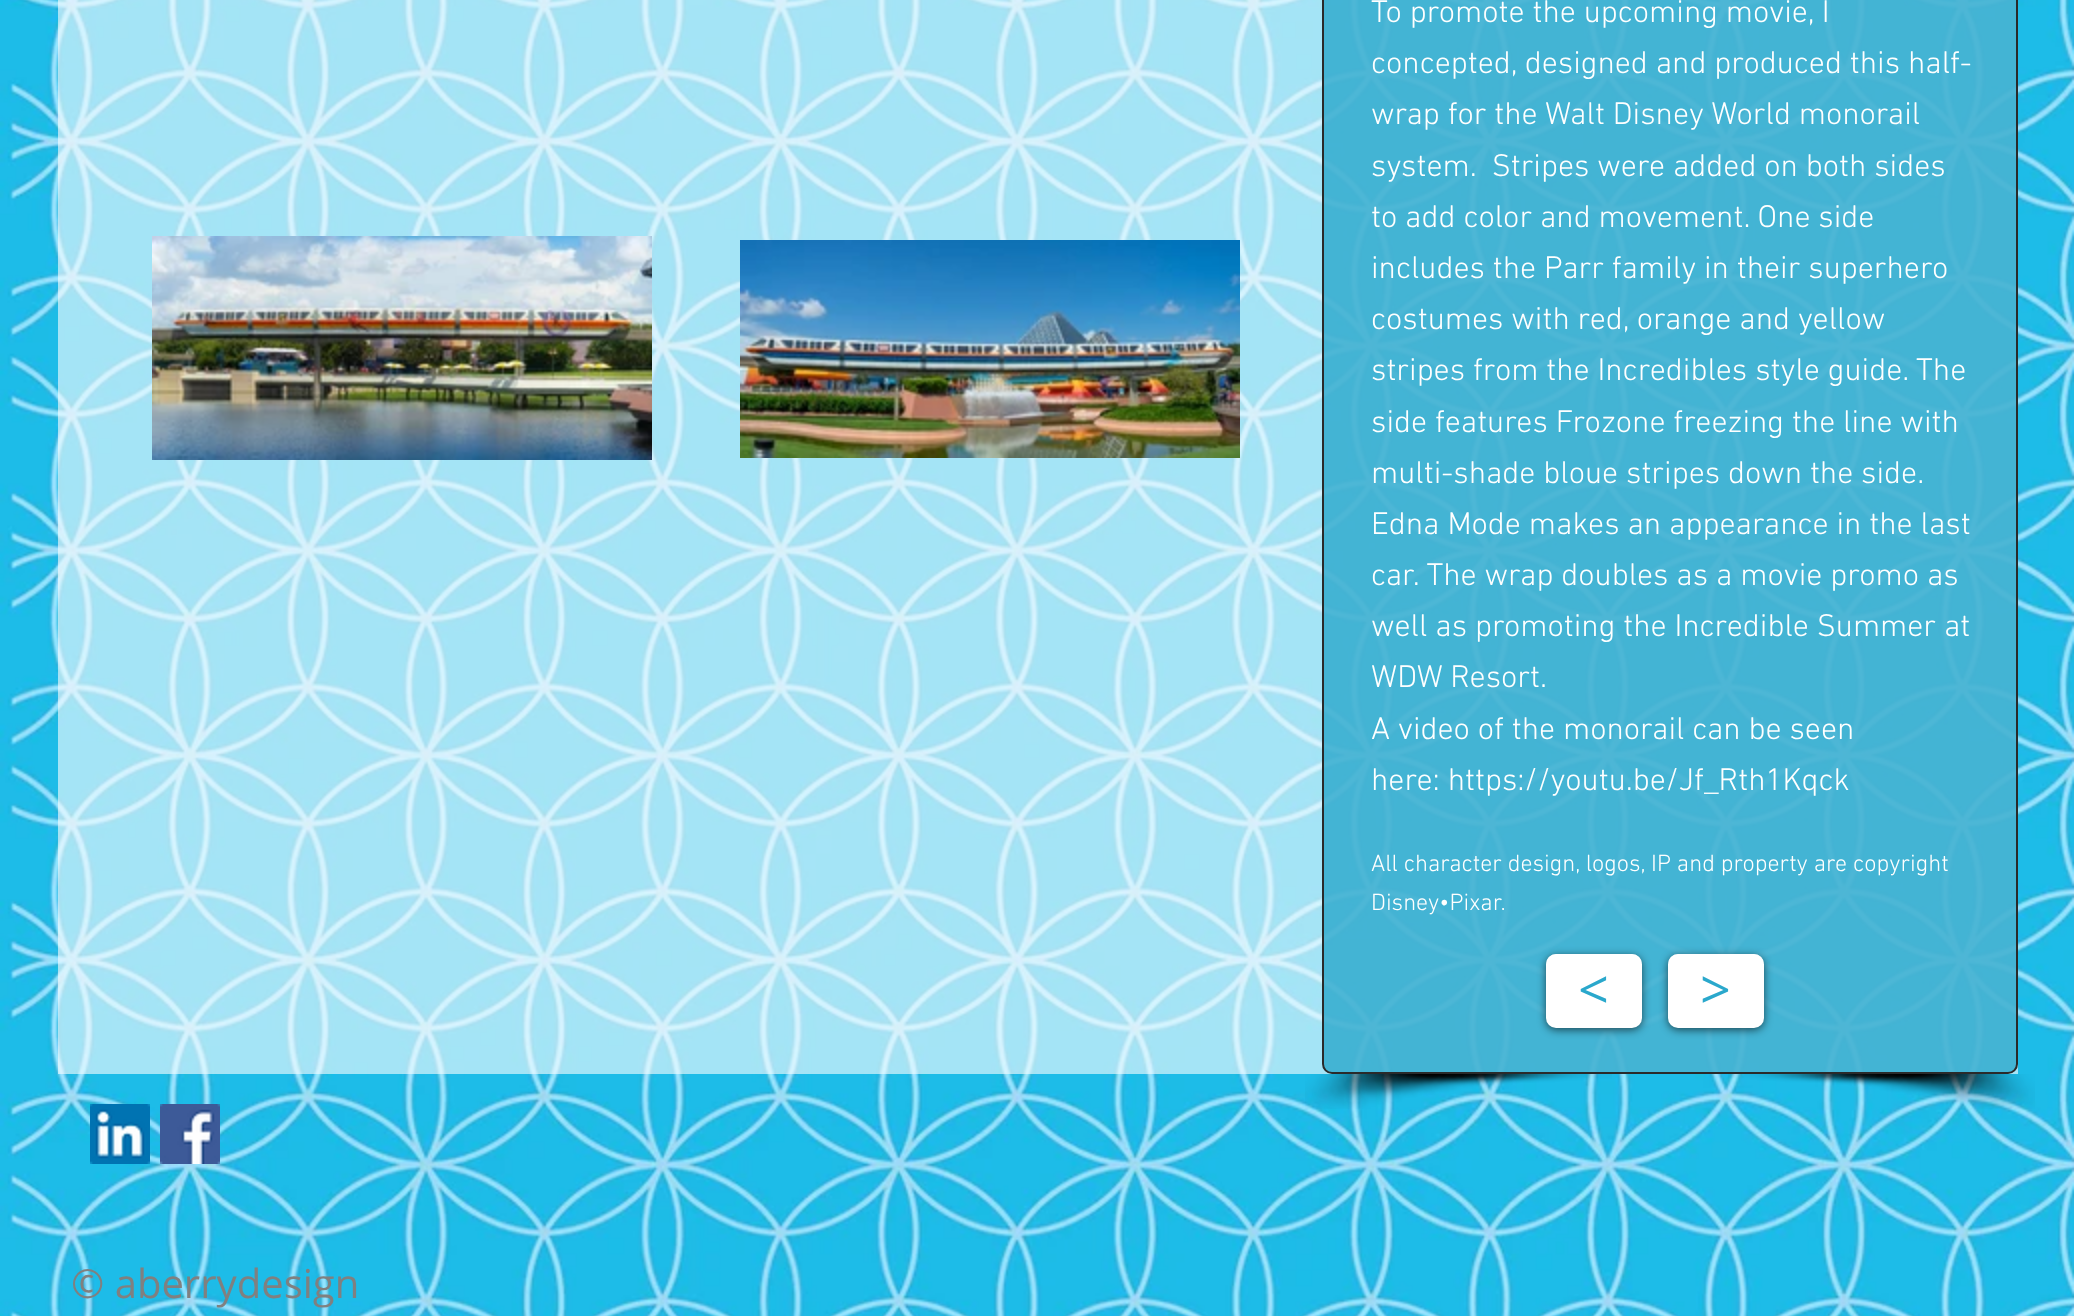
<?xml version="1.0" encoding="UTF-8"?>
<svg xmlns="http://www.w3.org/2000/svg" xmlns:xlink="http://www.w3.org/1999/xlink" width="2074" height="1316">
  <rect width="100%" height="100%" fill="#ffffff" />
  <image x="0" y="0" width="2074" height="1316" xlink:href="image1.png" />
  <rect x="58" width="1960" height="1074" fill="#ffffff" fill-opacity="0.6" />
  <image x="152" y="236" width="500" height="224" xlink:href="image2.png" />
  <image x="740" y="240" width="500" height="218" xlink:href="image3.png" />
  <rect x="1323" y="-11" width="694" height="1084" rx="9" fill="#2aa8cc" fill-opacity="0.8" stroke="#2a2a2a" stroke-width="2" />
  <rect x="1546" y="956" width="96" height="74" rx="10" fill="#000000" fill-opacity="0.6" filter="blur(4px)" />
  <rect x="1546" y="954" width="96" height="74" rx="10" fill="#ffffff" />
  <image x="1546" y="954" width="96" height="9" xlink:href="image4.png" />
  <rect x="1668" y="956" width="96" height="74" rx="10" fill="#000000" fill-opacity="0.6" filter="blur(4px)" />
  <rect x="1668" y="954" width="96" height="74" rx="10" fill="#ffffff" />
  <image x="1668" y="954" width="96" height="9" xlink:href="image5.png" />
  <image x="1305" y="1074" width="307" height="35" xlink:href="image6.png" />
  <image x="1728" y="1074" width="307" height="35" xlink:href="image7.png" />
  <image x="90" y="1104" width="60" height="60" xlink:href="image8.png" />
  <image x="160" y="1104" width="60" height="60" xlink:href="image9.png" />
  <text x="1371" y="22" style="font-family: 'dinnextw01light'; font-size: 32px; font-weight: 300; fill: #ffffff">To promote the upcoming movie, I</text>
  <text x="1371" y="73" style="font-family: 'dinnextw01light'; font-size: 32px; font-weight: 300; fill: #ffffff">concepted, designed and produced this half-</text>
  <text x="1371" y="124" style="font-family: 'dinnextw01light'; font-size: 32px; font-weight: 300; fill: #ffffff">wrap for the Walt Disney World monorail</text>
  <text x="1371" y="176" style="font-family: 'dinnextw01light'; font-size: 32px; font-weight: 300; fill: #ffffff" xml:space="preserve">system.  Stripes were added on both sides</text>
  <text x="1371" y="227" style="font-family: 'dinnextw01light'; font-size: 32px; font-weight: 300; fill: #ffffff">to add color and movement. One side</text>
  <text x="1371" y="278" style="font-family: 'dinnextw01light'; font-size: 32px; font-weight: 300; fill: #ffffff">includes the Parr family in their superhero</text>
  <text x="1371" y="329" style="font-family: 'dinnextw01light'; font-size: 32px; font-weight: 300; fill: #ffffff">costumes with red, orange and yellow</text>
  <text x="1371" y="380" style="font-family: 'dinnextw01light'; font-size: 32px; font-weight: 300; fill: #ffffff">stripes from the Incredibles style guide. The</text>
  <text x="1371" y="432" style="font-family: 'dinnextw01light'; font-size: 32px; font-weight: 300; fill: #ffffff">side features Frozone freezing the line with</text>
  <text x="1371" y="483" style="font-family: 'dinnextw01light'; font-size: 32px; font-weight: 300; fill: #ffffff">multi-shade bloue stripes down the side.</text>
  <text x="1371" y="534" style="font-family: 'dinnextw01light'; font-size: 32px; font-weight: 300; fill: #ffffff">Edna Mode makes an appearance in the last</text>
  <text x="1371" y="585" style="font-family: 'dinnextw01light'; font-size: 32px; font-weight: 300; fill: #ffffff">car. The wrap doubles as a movie promo as</text>
  <text x="1371" y="636" style="font-family: 'dinnextw01light'; font-size: 32px; font-weight: 300; fill: #ffffff">well as promoting the Incredible Summer at</text>
  <text x="1371" y="687" style="font-family: 'dinnextw01light'; font-size: 32px; font-weight: 300; fill: #ffffff">WDW Resort.</text>
  <text x="1371" y="739" style="font-family: 'dinnextw01light'; font-size: 32px; font-weight: 300; fill: #ffffff">A video of the monorail can be seen</text>
  <text x="1371" y="790" style="font-family: 'dinnextw01light'; font-size: 32px; font-weight: 300; fill: #ffffff">here: https://youtu.be/Jf_Rth1Kqck</text>
  <text x="1371" y="871" style="font-family: 'dinnextw01light'; font-size: 24px; font-weight: 300; fill: #ffffff">All character design, logos, IP and property are copyright</text>
  <text x="1371" y="910" style="font-family: 'dinnextw01light'; font-size: 24px; font-weight: 300; fill: #ffffff">Disney•Pixar.</text>
  <text x="1578" y="1009" style="font-family: Open Sans; font-size: 54px; fill: #2aa8cc">&lt;</text>
  <text x="1700" y="1009" style="font-family: Open Sans; font-size: 54px; fill: #2aa8cc">&gt;</text>
  <text x="71" y="1298" style="font-family: Open Sans; font-size: 40px; fill: #808080">© aberrydesign</text>
</svg>
